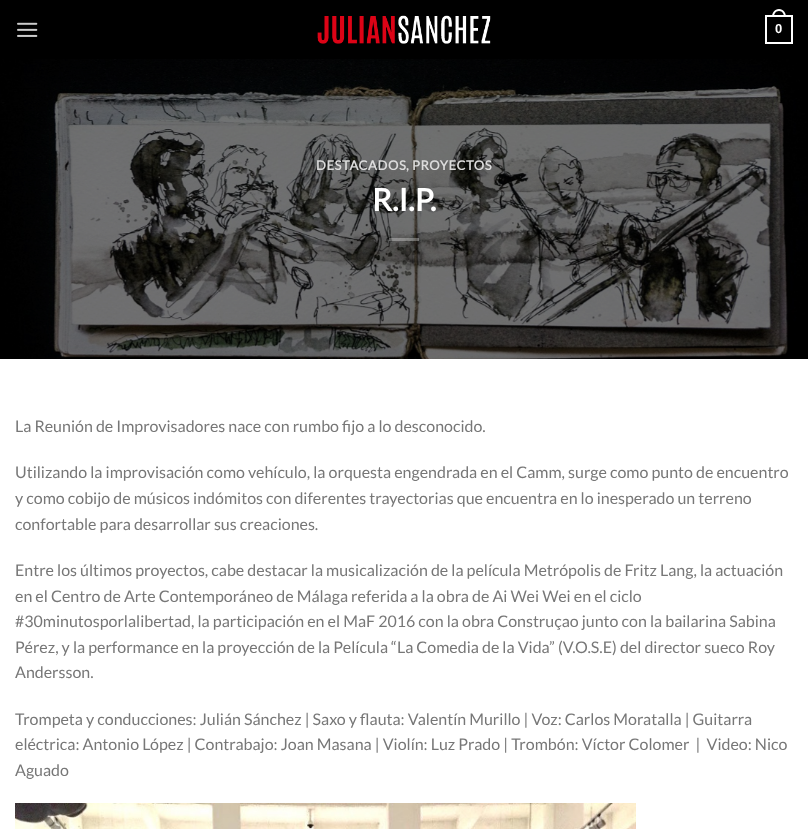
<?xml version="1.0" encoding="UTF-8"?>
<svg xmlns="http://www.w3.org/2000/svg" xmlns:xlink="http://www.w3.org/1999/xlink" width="808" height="829">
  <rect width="100%" height="100%" fill="#ffffff" />
  <rect width="808" height="59" fill="#000000" />
  <image x="17" y="22" width="21" height="15" xlink:href="image1.png" />
  <image x="317" y="15" width="174" height="29" xlink:href="image2.png" />
  <rect x="766" y="16" width="26" height="27" fill="none" stroke="#ffffff" stroke-width="2" />
  <path d="M 779 9 c 4.5 0 7 4 7 8 h -14 c 0 -4 2.5 -8 7 -8 z m 0 2 c 3.5 0 5 3 5 6 h -10 c 0 -3 1.5 -6 5 -6 z" fill="#ffffff" fill-rule="evenodd" />
  <image x="0" y="59" width="808" height="300" xlink:href="image3.png" />
  <rect x="389" y="238" width="30" height="3" fill="#ffffff" fill-opacity="0.3" />
  <image x="15" y="803" width="621" height="26" xlink:href="image4.png" />
  <text x="775" y="33" style="font-family: Liberation Sans; font-size: 13px; font-weight: bold; fill: #ffffff">0</text>
  <text x="316" y="170" style="font-family: Lato; font-size: 13px; font-weight: bold; letter-spacing: 0.6px; fill: #dcdcdc">DESTACADOS</text>
  <text x="406" y="170" style="font-family: Lato; font-size: 13px; font-weight: bold; letter-spacing: 0.6px; fill: #dcdcdc">,</text>
  <text x="412" y="170" style="font-family: Lato; font-size: 13px; font-weight: bold; letter-spacing: 0.6px; fill: #dcdcdc">PROYECTOS</text>
  <text x="372" y="211" style="font-family: Lato; font-size: 31px; font-weight: bold; fill: #ffffff">R.I.P.</text>
  <text x="15" y="432" style="font-family: Lato; font-size: 16px; fill: #777777">La Reunión de Improvisadores nace con rumbo fijo a lo desconocido.</text>
  <text x="15" y="478" style="font-family: Lato; font-size: 16px; fill: #777777">Utilizando la improvisación como vehículo, la orquesta engendrada en el Camm, surge como punto de encuentro</text>
  <text x="15" y="504" style="font-family: Lato; font-size: 16px; fill: #777777">y como cobijo de músicos indómitos con diferentes trayectorias que encuentra en lo inesperado un terreno</text>
  <text x="15" y="530" style="font-family: Lato; font-size: 16px; fill: #777777">confortable para desarrollar sus creaciones.</text>
  <text x="15" y="576" style="font-family: Lato; font-size: 16px; fill: #777777">Entre los últimos proyectos, cabe destacar la musicalización de la película Metrópolis de Fritz Lang, la actuación</text>
  <text x="15" y="602" style="font-family: Lato; font-size: 16px; fill: #777777">en el Centro de Arte Contemporáneo de Málaga referida a la obra de Ai Wei Wei en el ciclo</text>
  <text x="15" y="627" style="font-family: Lato; font-size: 16px; fill: #777777">#30minutosporlalibertad, la participación en el MaF 2016 con la obra Construçao junto con la bailarina Sabina</text>
  <text x="15" y="653" style="font-family: Lato; font-size: 16px; fill: #777777">Pérez, y la performance en la proyección de la Película “La Comedia de la Vida” (V.O.S.E) del director sueco Roy</text>
  <text x="15" y="678" style="font-family: Lato; font-size: 16px; fill: #777777">Andersson.</text>
  <text x="15" y="725" style="font-family: Lato; font-size: 16px; fill: #777777">Trompeta y conducciones: Julián Sánchez | Saxo y flauta: Valentín Murillo | Voz: Carlos Moratalla | Guitarra</text>
  <text x="15" y="750" style="font-family: Lato; font-size: 16px; fill: #777777" xml:space="preserve">eléctrica: Antonio López | Contrabajo: Joan Masana | Violín: Luz Prado | Trombón: Víctor Colomer  |  Video: Nico</text>
  <text x="15" y="776" style="font-family: Lato; font-size: 16px; fill: #777777">Aguado</text>
</svg>
